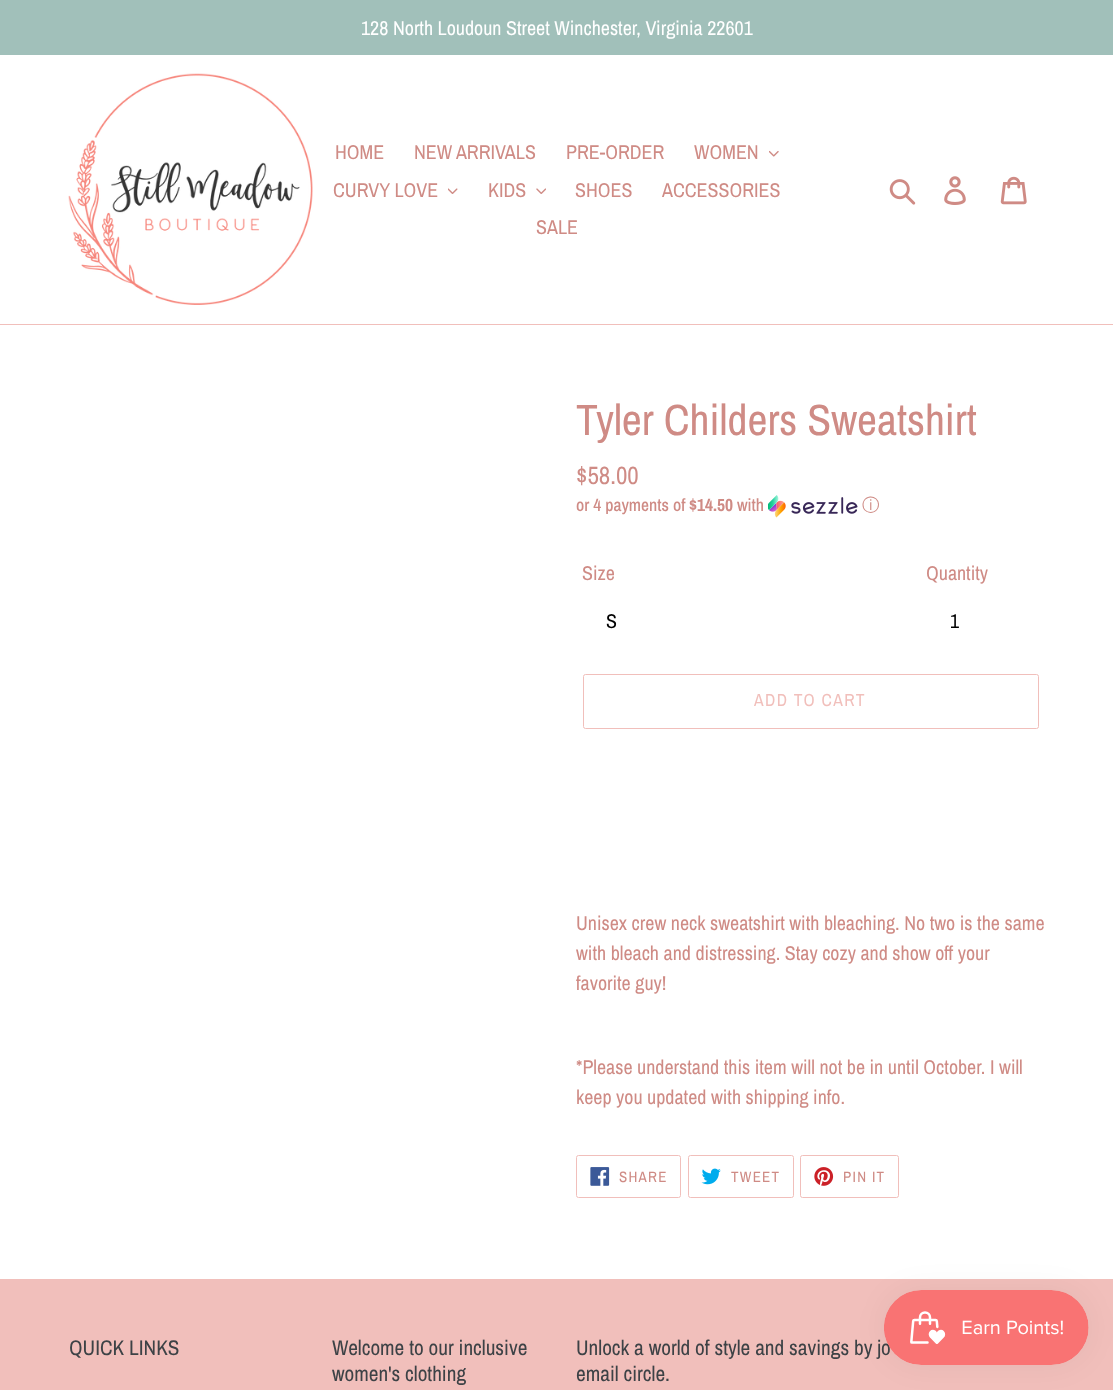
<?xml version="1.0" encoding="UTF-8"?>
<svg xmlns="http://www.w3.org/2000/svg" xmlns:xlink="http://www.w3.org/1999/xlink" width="1113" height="1390">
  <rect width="100%" height="100%" fill="#ffffff" />
  <rect width="1113" height="55" fill="#a1c0ba" />
  <rect y="324" width="1113" height="1" fill="#f1bfbb" />
  <image x="68" y="73" width="245" height="232" xlink:href="image1.png" />
  <image x="769" y="150" width="10" height="7" xlink:href="image2.png" />
  <image x="448" y="188" width="10" height="6" xlink:href="image3.png" />
  <image x="536" y="188" width="10" height="6" xlink:href="image4.png" />
  <image x="889" y="179" width="27" height="26" xlink:href="image5.png" />
  <image x="944" y="176" width="22" height="29" xlink:href="image6.png" />
  <image x="1000" y="176" width="27" height="29" xlink:href="image7.png" />
  <image x="768" y="495" width="90" height="23" xlink:href="image8.png" />
  <rect x="583.5" y="674.5" width="455" height="54" rx="2" fill="none" stroke="#f1bfbb" />
  <rect x="576.5" y="1155.5" width="104" height="42" rx="2" fill="none" stroke="#f1bfbb" />
  <image x="590" y="1167" width="20" height="19" xlink:href="image9.png" />
  <rect x="688.5" y="1155.5" width="105" height="42" rx="2" fill="none" stroke="#f1bfbb" />
  <image x="701" y="1168" width="20" height="17" xlink:href="image10.png" />
  <rect x="800.5" y="1155.5" width="98" height="42" rx="2" fill="none" stroke="#f1bfbb" />
  <image x="814" y="1167" width="20" height="19" xlink:href="image11.png" />
  <rect y="1279" width="1113" height="111" fill="#f1bfbb" />
  <rect x="884" y="1290" width="205" height="75" rx="37.5" fill="#000000" fill-opacity="0.05" filter="blur(15.5px)" />
  <text x="361" y="35" style="font-family: Archivo Narrow; font-size: 20px; fill: #ffffff">128 North Loudoun Street Winchester, Virginia 22601</text>
  <text x="335" y="159" style="font-family: Archivo Narrow; font-size: 20px; fill: #cf8b85">HOME</text>
  <text x="414" y="159" style="font-family: Archivo Narrow; font-size: 20px; fill: #cf8b85">NEW ARRIVALS</text>
  <text x="566" y="159" style="font-family: Archivo Narrow; font-size: 20px; fill: #cf8b85">PRE-ORDER</text>
  <text x="694" y="159" style="font-family: Archivo Narrow; font-size: 20px; fill: #cf8b85">WOMEN</text>
  <text x="333" y="197" style="font-family: Archivo Narrow; font-size: 20px; fill: #cf8b85">CURVY LOVE</text>
  <text x="488" y="197" style="font-family: Archivo Narrow; font-size: 20px; fill: #cf8b85">KIDS</text>
  <text x="575" y="197" style="font-family: Archivo Narrow; font-size: 20px; fill: #cf8b85">SHOES</text>
  <text x="662" y="197" style="font-family: Archivo Narrow; font-size: 20px; fill: #cf8b85">ACCESSORIES</text>
  <text x="536" y="234" style="font-family: Archivo Narrow; font-size: 20px; fill: #cf8b85">SALE</text>
  <text x="576" y="435" style="font-family: Archivo Narrow; font-size: 43.75px; fill: #cf8b85">Tyler Childers Sweatshirt</text>
  <text x="576" y="484" style="font-family: Archivo Narrow; font-size: 25px; fill: #cf8b85">$58.00</text>
  <text x="576" y="511" style="font-family: Archivo Narrow; font-size: 17.5px; font-weight: 500; fill: #cf8b85">or 4 payments of</text>
  <text x="689" y="511" style="font-family: Archivo Narrow; font-size: 17.5px; font-weight: bold; fill: #cf8b85">$14.50</text>
  <text x="737" y="511" style="font-family: Archivo Narrow; font-size: 17.5px; font-weight: 500; fill: #cf8b85">with</text>
  <text x="862" y="511" style="font-family: WenQuanYi Zen Hei; font-size: 17.5px; font-weight: 500; fill: #cf8b85">ⓘ</text>
  <text x="582" y="580" style="font-family: Archivo Narrow; font-size: 20px; fill: #cf8b85">Size</text>
  <text x="606" y="628" style="font-family: Archivo Narrow; font-size: 20px; fill: #000000">S</text>
  <text x="926" y="580" style="font-family: Archivo Narrow; font-size: 20px; fill: #cf8b85">Quantity</text>
  <text x="950" y="628" style="font-family: Archivo Narrow; font-size: 20px; fill: #000000">1</text>
  <text x="754" y="706" style="font-family: Archivo Narrow; font-size: 17.5px; letter-spacing: 1.4px; fill: #f1bfbb">ADD TO CART</text>
  <text x="576" y="930" style="font-family: Archivo Narrow; font-size: 20px; fill: #cf8b85">Unisex crew neck sweatshirt with bleaching. No two is the same</text>
  <text x="576" y="960" style="font-family: Archivo Narrow; font-size: 20px; fill: #cf8b85">with bleach and distressing. Stay cozy and show off your</text>
  <text x="576" y="990" style="font-family: Archivo Narrow; font-size: 20px; fill: #cf8b85">favorite guy!</text>
  <text x="576" y="1074" style="font-family: Archivo Narrow; font-size: 20px; fill: #cf8b85">*Please understand this item will not be in until October. I will</text>
  <text x="576" y="1104" style="font-family: Archivo Narrow; font-size: 20px; fill: #cf8b85">keep you updated with shipping info.</text>
  <text x="619" y="1182" style="font-family: Archivo Narrow; font-size: 15px; letter-spacing: 1.25px; fill: #cf8b85">SHARE</text>
  <text x="731" y="1182" style="font-family: Archivo Narrow; font-size: 15px; letter-spacing: 1.25px; fill: #cf8b85">TWEET</text>
  <text x="843" y="1182" style="font-family: Archivo Narrow; font-size: 15px; letter-spacing: 1.25px; fill: #cf8b85">PIN IT</text>
  <text x="69" y="1355" style="font-family: Archivo Narrow; font-size: 21.25px; fill: #3d4246">QUICK LINKS</text>
  <text x="332" y="1355" style="font-family: Archivo Narrow; font-size: 21.25px; fill: #3d4246">Welcome to our inclusive</text>
  <text x="332" y="1381" style="font-family: Archivo Narrow; font-size: 21.25px; fill: #3d4246">women's clothing</text>
  <text x="576" y="1355" style="font-family: Archivo Narrow; font-size: 21.25px; fill: #3d4246">Unlock a world of style and savings by jo</text>
  <text x="576" y="1381" style="font-family: Archivo Narrow; font-size: 21.25px; fill: #3d4246">email circle.</text>
  <image x="884" y="1290" width="205" height="75" xlink:href="image12.png" />
</svg>
